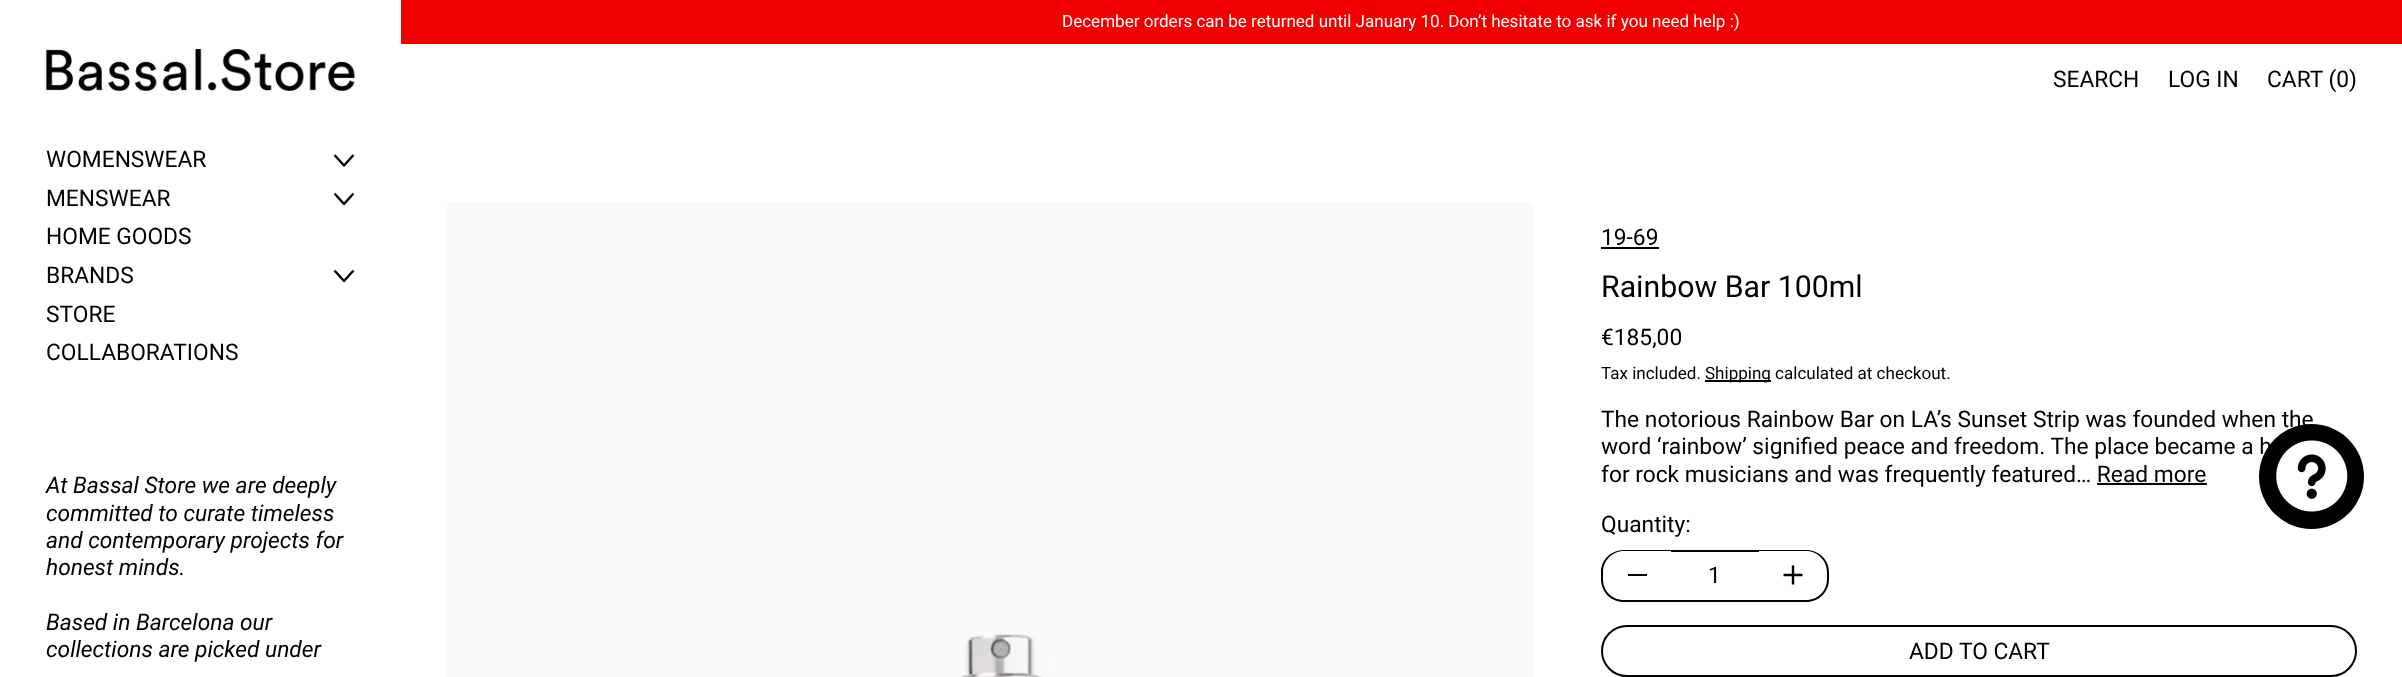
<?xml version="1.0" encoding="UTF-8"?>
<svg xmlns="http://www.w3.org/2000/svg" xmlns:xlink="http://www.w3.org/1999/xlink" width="2402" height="677">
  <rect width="100%" height="100%" fill="#ffffff" />
  <image x="45" y="48" width="310" height="43" xlink:href="image1.png" />
  <path d="M 334.5 155 l 9.5 10.5 l 9.5 -10.5 m -19 38.5 l 9.5 10.5 l 9.5 -10.5" fill="none" stroke="#000000" stroke-width="2.4" stroke-linejoin="round" />
  <path d="M 334.5 270.5 l 9.5 10.5 l 9.5 -10.5" fill="none" stroke="#000000" stroke-width="2.4" stroke-linejoin="round" />
  <rect x="401" width="2001" height="44" fill="#f10000" />
  <image x="447" y="202" width="1086" height="475" xlink:href="image2.png" />
  <rect x="1601" y="247" width="58" height="2" fill="#000000" />
  <rect x="1705" y="380" width="66" height="2" fill="#000000" />
  <rect x="2097" y="483" width="110" height="2" fill="#000000" />
  <path d="M 1624 550 h 47 v 52 h -47 c -13 0 -23 -10 -23 -23 v -7 c 0 -12 10 -22 23 -22 z m 0 1 h 47 v 49 h -47 c -12 0 -21 -9 -21 -21 v -7 c 0 -11 9 -21 21 -21 z" fill="#000000" fill-rule="evenodd" />
  <rect x="1628" y="574" width="19" height="2" fill="#000000" />
  <rect x="1671" y="550" width="88" height="2" fill="#000000" />
  <rect x="1671" y="600" width="88" height="2" fill="#000000" />
  <path d="M 1759 550 h 47 c 13 0 23 10 23 22 v 7 c 0 13 -10 23 -23 23 h -47 z m 0 1 h 47 c 12 0 21 10 21 21 v 7 c 0 12 -9 21 -21 21 h -47 z" fill="#000000" fill-rule="evenodd" />
  <path d="M 1783.5 575 h 19 m -9.5 -9.5 v 19" fill="none" stroke="#000000" stroke-width="2.4" stroke-linejoin="round" />
  <rect x="1602" y="626" width="754" height="50" rx="25" fill="none" stroke="#000000" stroke-width="2" />
  <circle cx="2311.5" cy="476.5" r="52.5" fill="#000000" />
  <image x="2276" y="440" width="72" height="72" xlink:href="image3.png" />
  <text x="46" y="167" style="font-family: Roboto; font-size: 22.75px; fill: #000000">WOMENSWEAR</text>
  <text x="46" y="206" style="font-family: Roboto; font-size: 22.75px; fill: #000000">MENSWEAR</text>
  <text x="46" y="244" style="font-family: Roboto; font-size: 22.75px; fill: #000000">HOME GOODS</text>
  <text x="46" y="283" style="font-family: Roboto; font-size: 22.75px; fill: #000000">BRANDS</text>
  <text x="46" y="322" style="font-family: Roboto; font-size: 22.75px; fill: #000000">STORE</text>
  <text x="46" y="360" style="font-family: Roboto; font-size: 22.75px; fill: #000000">COLLABORATIONS</text>
  <text x="46" y="493" style="font-family: Roboto; font-size: 22.75px; font-style: italic; fill: #000000">At Bassal Store we are deeply</text>
  <text x="46" y="521" style="font-family: Roboto; font-size: 22.75px; font-style: italic; fill: #000000">committed to curate timeless</text>
  <text x="46" y="548" style="font-family: Roboto; font-size: 22.75px; font-style: italic; fill: #000000">and contemporary projects for</text>
  <text x="46" y="575" style="font-family: Roboto; font-size: 22.75px; font-style: italic; fill: #000000">honest minds.</text>
  <text x="46" y="630" style="font-family: Roboto; font-size: 22.75px; font-style: italic; fill: #000000">Based in Barcelona our</text>
  <text x="46" y="657" style="font-family: Roboto; font-size: 22.75px; font-style: italic; fill: #000000">collections are picked under</text>
  <text x="1062" y="27" style="font-family: Roboto; font-size: 17.05px; fill: #ffffff">December orders can be returned until January 10. Don’t hesitate to ask if you need help :)</text>
  <text x="2053" y="87" style="font-family: Roboto; font-size: 22.75px; fill: #000000">SEARCH</text>
  <text x="2168" y="87" style="font-family: Roboto; font-size: 22.75px; fill: #000000">LOG IN</text>
  <text x="2267" y="87" style="font-family: Roboto; font-size: 22.75px; fill: #000000">CART (0)</text>
  <text x="1601" y="245" style="font-family: Roboto; font-size: 22.75px; fill: #000000">19-69</text>
  <text x="1601" y="297" style="font-family: Roboto; font-size: 30.25px; fill: #000000">Rainbow Bar 100ml</text>
  <text x="1601" y="345" style="font-family: Roboto; font-size: 22.75px; fill: #000000">€185,00</text>
  <text x="1601" y="379" style="font-family: Roboto; font-size: 17.05px; fill: #000000">Tax included.</text>
  <text x="1705" y="379" style="font-family: Roboto; font-size: 17.05px; fill: #000000">Shipping calculated at checkout.</text>
  <text x="1601" y="427" style="font-family: Roboto; font-size: 22.75px; fill: #000000">The notorious Rainbow Bar on LA’s Sunset Strip was founded when the</text>
  <text x="1601" y="454" style="font-family: Roboto; font-size: 22.75px; fill: #000000">word ‘rainbow’ signified peace and freedom. The place became a h</text>
  <text x="1601" y="482" style="font-family: Roboto; font-size: 22.75px; fill: #000000">for rock musicians and was frequently featured… Read more</text>
  <text x="1601" y="532" style="font-family: Roboto; font-size: 22.75px; fill: #000000">Quantity:</text>
  <text x="1708" y="583" style="font-family: Roboto; font-size: 22.75px; fill: #000000">1</text>
  <text x="1909" y="659" style="font-family: Roboto; font-size: 22.75px; fill: #000000">ADD TO CART</text>
</svg>
